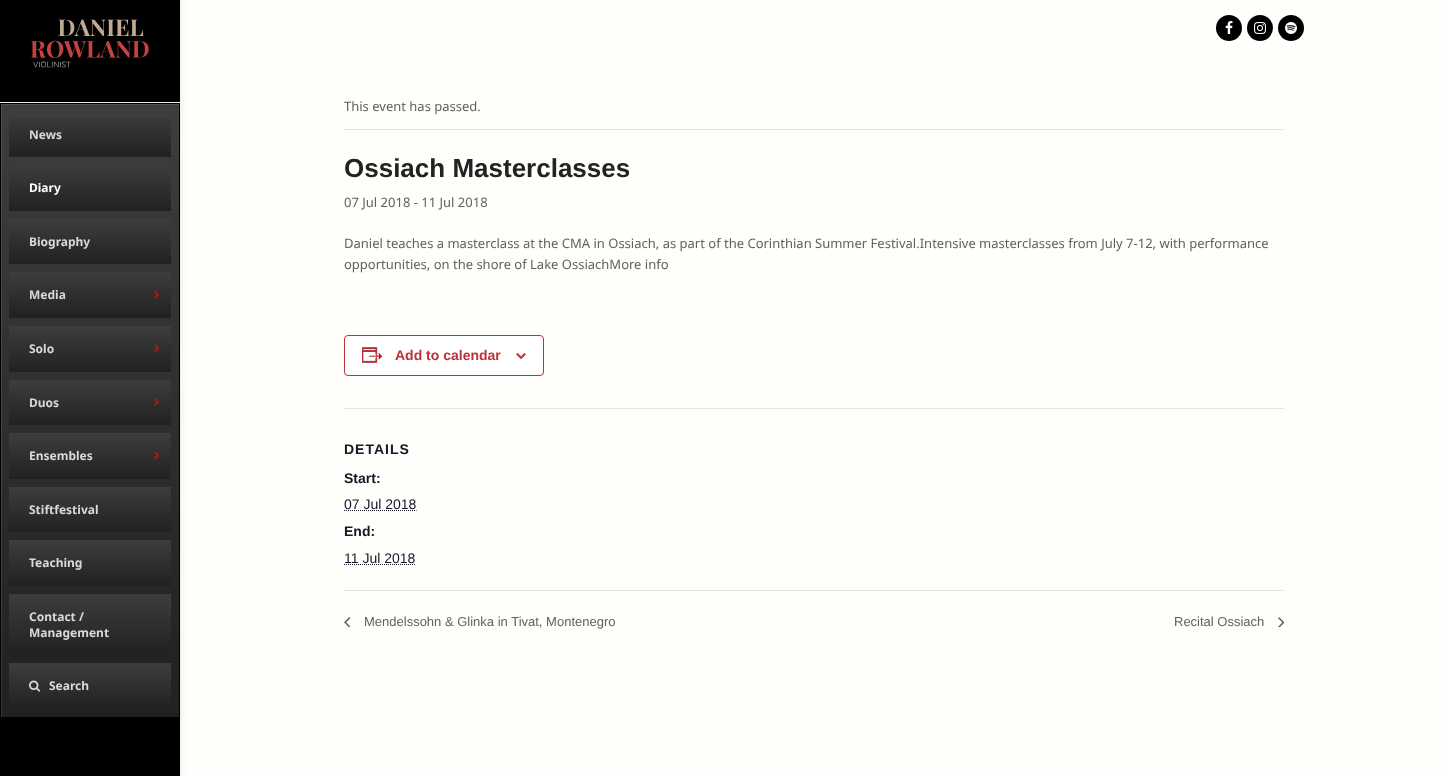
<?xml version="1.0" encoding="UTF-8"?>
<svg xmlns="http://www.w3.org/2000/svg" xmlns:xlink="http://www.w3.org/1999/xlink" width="1448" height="776">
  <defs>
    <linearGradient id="g1" gradientUnits="userSpaceOnUse" x1="90" y1="104" x2="90" y2="717"><stop offset="0" stop-color="#3d3d3d" /><stop offset="1" stop-color="#212121" /></linearGradient>
    <clipPath id="clip1"><rect x="1" y="104" width="178" height="613" /></clipPath>
    <linearGradient id="g2" gradientUnits="userSpaceOnUse" x1="90" y1="112" x2="90" y2="157"><stop offset="0" stop-color="#3d3d3d" /><stop offset="1" stop-color="#212121" /></linearGradient>
    <linearGradient id="g3" gradientUnits="userSpaceOnUse" x1="90" y1="165" x2="90" y2="211"><stop offset="0" stop-color="#3d3d3d" /><stop offset="1" stop-color="#212121" /></linearGradient>
    <linearGradient id="g4" gradientUnits="userSpaceOnUse" x1="90" y1="219" x2="90" y2="264"><stop offset="0" stop-color="#3d3d3d" /><stop offset="1" stop-color="#212121" /></linearGradient>
    <linearGradient id="g5" gradientUnits="userSpaceOnUse" x1="90" y1="272" x2="90" y2="318"><stop offset="0" stop-color="#3d3d3d" /><stop offset="1" stop-color="#212121" /></linearGradient>
    <linearGradient id="g6" gradientUnits="userSpaceOnUse" x1="90" y1="326" x2="90" y2="372"><stop offset="0" stop-color="#3d3d3d" /><stop offset="1" stop-color="#212121" /></linearGradient>
    <linearGradient id="g7" gradientUnits="userSpaceOnUse" x1="90" y1="380" x2="90" y2="425"><stop offset="0" stop-color="#3d3d3d" /><stop offset="1" stop-color="#212121" /></linearGradient>
    <linearGradient id="g8" gradientUnits="userSpaceOnUse" x1="90" y1="433" x2="90" y2="479"><stop offset="0" stop-color="#3d3d3d" /><stop offset="1" stop-color="#212121" /></linearGradient>
    <linearGradient id="g9" gradientUnits="userSpaceOnUse" x1="90" y1="487" x2="90" y2="532"><stop offset="0" stop-color="#3d3d3d" /><stop offset="1" stop-color="#212121" /></linearGradient>
    <linearGradient id="g10" gradientUnits="userSpaceOnUse" x1="90" y1="540" x2="90" y2="586"><stop offset="0" stop-color="#3d3d3d" /><stop offset="1" stop-color="#212121" /></linearGradient>
    <linearGradient id="g11" gradientUnits="userSpaceOnUse" x1="90" y1="594" x2="90" y2="655"><stop offset="0" stop-color="#3d3d3d" /><stop offset="1" stop-color="#212121" /></linearGradient>
    <linearGradient id="g12" gradientUnits="userSpaceOnUse" x1="90" y1="663" x2="90" y2="709"><stop offset="0" stop-color="#3d3d3d" /><stop offset="1" stop-color="#212121" /></linearGradient>
  </defs>
  <rect width="100%" height="100%" fill="#fffefb" />
  <circle cx="1229" cy="28" r="13" fill="#000000" />
  <image x="1225" y="21" width="8" height="13" xlink:href="image1.png" />
  <circle cx="1260" cy="28" r="13" fill="#000000" />
  <image x="1254" y="22" width="12" height="12" xlink:href="image2.png" />
  <circle cx="1291" cy="28" r="13" fill="#000000" />
  <image x="1285" y="22" width="12" height="12" xlink:href="image3.png" />
  <rect width="180" height="776" fill="#000000" fill-opacity="0.1" filter="blur(3.5px)" />
  <rect width="180" height="776" fill="#000000" />
  <image x="30" y="19" width="119" height="49" xlink:href="image4.png" />
  <rect y="102" width="180" height="1" fill="#eeeeee" />
  <rect x="1" y="104" width="178" height="613" fill="url(#g1)" />
  <g clip-path="url(#clip1)">
    <path d="M -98 5 h 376 v 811 h -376 z m 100 100 h 178 v 613 h -178 z" fill="#ffffff" fill-opacity="0.1" fill-rule="evenodd" />
  </g>
  <rect x="9" y="118" width="162" height="39" fill="url(#g2)" />
  <rect x="9" y="165" width="162" height="46" fill="url(#g3)" />
  <rect x="9" y="219" width="162" height="45" fill="url(#g4)" />
  <rect x="9" y="272" width="162" height="46" fill="url(#g5)" />
  <image x="154" y="291" width="5" height="8" xlink:href="image5.png" />
  <rect x="9" y="326" width="162" height="46" fill="url(#g6)" />
  <image x="154" y="344" width="6" height="8" xlink:href="image6.png" />
  <rect x="9" y="380" width="162" height="45" fill="url(#g7)" />
  <image x="154" y="398" width="5" height="8" xlink:href="image7.png" />
  <rect x="9" y="433" width="162" height="46" fill="url(#g8)" />
  <image x="154" y="451" width="6" height="9" xlink:href="image8.png" />
  <rect x="9" y="487" width="162" height="45" fill="url(#g9)" />
  <rect x="9" y="540" width="162" height="46" fill="url(#g10)" />
  <rect x="9" y="594" width="162" height="61" fill="url(#g11)" />
  <rect x="9" y="663" width="162" height="40" fill="url(#g12)" />
  <image x="29" y="680" width="12" height="12" xlink:href="image9.png" />
  <rect x="344" y="129" width="940" height="1" fill="#e4e4e4" />
  <rect x="344.5" y="335.5" width="199" height="40" rx="3.5" fill="#ffffff" stroke="#b93139" />
  <image x="362" y="347" width="21" height="16" xlink:href="image10.png" />
  <image x="516" y="353" width="10" height="6" xlink:href="image11.png" />
  <rect x="344" y="408" width="940" height="1" fill="#e4e4e4" />
  <path d="M 344 510.5 h 72.5" fill="none" stroke="#141827" stroke-dasharray="1 1" />
  <path d="M 344 564.5 h 71.5" fill="none" stroke="#141827" stroke-dasharray="1 1" />
  <rect x="344" y="590" width="940" height="1" fill="#e4e4e4" />
  <image x="344" y="617" width="7" height="10" xlink:href="image12.png" />
  <image x="1278" y="617" width="6" height="10" xlink:href="image13.png" />
  <text x="29" y="139" style="font-family: Noto Sans; font-size: 12px; font-weight: bold; fill: #d9d9d9">News</text>
  <text x="29" y="192" style="font-family: Noto Sans; font-size: 12px; font-weight: bold; fill: #ffffff">Diary</text>
  <text x="29" y="246" style="font-family: Noto Sans; font-size: 12px; font-weight: bold; fill: #d9d9d9">Biography</text>
  <text x="29" y="299" style="font-family: Noto Sans; font-size: 12px; font-weight: bold; fill: #d9d9d9">Media</text>
  <text x="29" y="353" style="font-family: Noto Sans; font-size: 12px; font-weight: bold; fill: #d9d9d9">Solo</text>
  <text x="29" y="407" style="font-family: Noto Sans; font-size: 12px; font-weight: bold; fill: #d9d9d9">Duos</text>
  <text x="29" y="460" style="font-family: Noto Sans; font-size: 12px; font-weight: bold; fill: #d9d9d9">Ensembles</text>
  <text x="29" y="514" style="font-family: Noto Sans; font-size: 12px; font-weight: bold; fill: #d9d9d9">Stiftfestival</text>
  <text x="29" y="567" style="font-family: Noto Sans; font-size: 12px; font-weight: bold; fill: #d9d9d9">Teaching</text>
  <text x="29" y="621" style="font-family: Noto Sans; font-size: 12px; font-weight: bold; fill: #d9d9d9">Contact /</text>
  <text x="29" y="637" style="font-family: Noto Sans; font-size: 12px; font-weight: bold; fill: #d9d9d9">Management</text>
  <text x="49" y="690" style="font-family: Noto Sans; font-size: 12px; font-weight: bold; fill: #d9d9d9">Search</text>
  <text x="344" y="111" style="font-family: Noto Sans; font-size: 13px; fill: #616161">This event has passed.</text>
  <text x="344" y="177" style="font-family: Liberation Sans; font-size: 26px; font-weight: bold; fill: #222222">Ossiach Masterclasses</text>
  <text x="344" y="207" style="font-family: Noto Sans; font-size: 13px; fill: #616161">07 Jul 2018 - 11 Jul 2018</text>
  <text x="344" y="248" style="font-family: Noto Sans; font-size: 13px; fill: #616161">Daniel teaches a masterclass at the CMA in Ossiach, as part of the Corinthian Summer Festival.Intensive masterclasses from July 7-12, with performance</text>
  <text x="344" y="269" style="font-family: Noto Sans; font-size: 13px; fill: #616161">opportunities, on the shore of Lake OssiachMore info</text>
  <text x="395" y="360" style="font-family: Liberation Sans; font-size: 14px; font-weight: bold; fill: #b93139">Add to calendar</text>
  <text x="344" y="454" style="font-family: Liberation Sans; font-size: 14px; font-weight: bold; letter-spacing: 1px; fill: #141827">DETAILS</text>
  <text x="344" y="483" style="font-family: Liberation Sans; font-size: 14px; font-weight: bold; fill: #141827">Start:</text>
  <text x="344" y="509" style="font-family: Liberation Sans; font-size: 14px; fill: #141827">07 Jul 2018</text>
  <text x="344" y="536" style="font-family: Liberation Sans; font-size: 14px; font-weight: bold; fill: #141827">End:</text>
  <text x="344" y="563" style="font-family: Liberation Sans; font-size: 14px; fill: #141827">11 Jul 2018</text>
  <text x="364" y="626" style="font-family: Liberation Sans; font-size: 13px; fill: #616161">Mendelssohn &amp; Glinka in Tivat, Montenegro</text>
  <text x="1174" y="626" style="font-family: Liberation Sans; font-size: 13px; fill: #616161">Recital Ossiach</text>
</svg>
